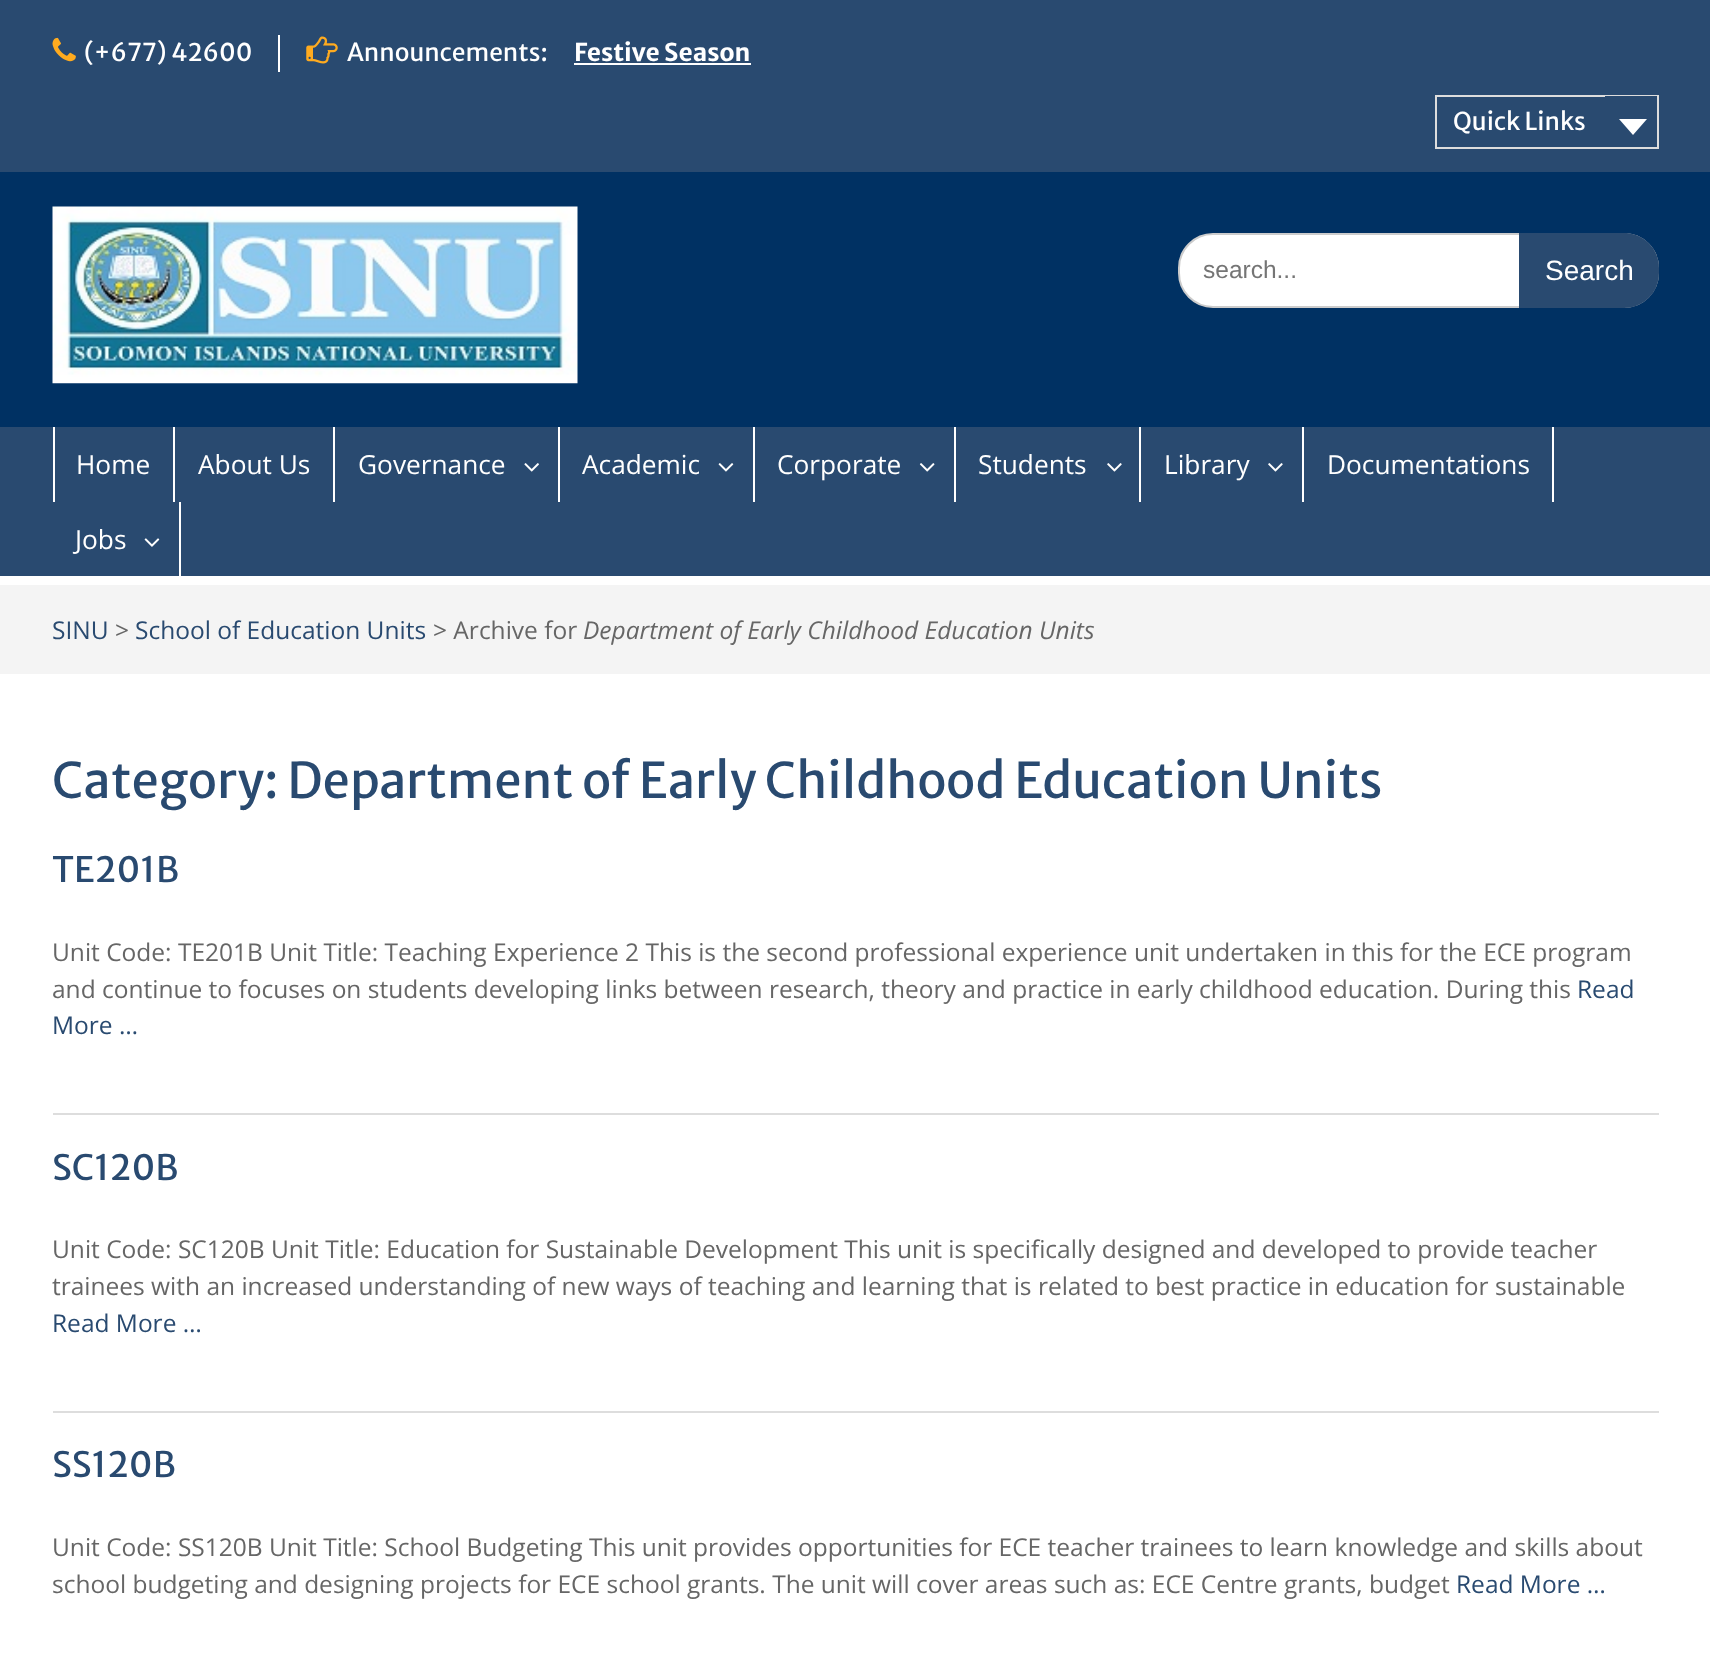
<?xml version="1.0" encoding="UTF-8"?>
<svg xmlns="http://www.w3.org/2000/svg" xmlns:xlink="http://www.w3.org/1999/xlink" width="1710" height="1658">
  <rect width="100%" height="100%" fill="#ffffff" />
  <rect width="1710" height="172" fill="#294a70" />
  <image x="52" y="37" width="24" height="25" xlink:href="image1.png" />
  <rect x="278" y="35" width="2" height="37" fill="#ffffff" />
  <image x="306" y="36" width="32" height="28" xlink:href="image2.png" />
  <rect x="574" y="63" width="177" height="2" fill="#ffffff" />
  <rect x="1436" y="96" width="222" height="52" fill="none" stroke="#dddddd" stroke-width="2" />
  <rect x="1605" y="96" width="52" height="1" fill="#294a70" />
  <path d="M 1619 119 h 28 l -14 16 z" fill="#ffffff" />
  <rect y="172" width="1710" height="255" fill="#003163" />
  <image x="52" y="206" width="526" height="178" xlink:href="image3.png" />
  <rect x="1179" y="234" width="479" height="73" rx="34" fill="#ffffff" stroke="#cccccc" stroke-width="2" />
  <path d="M 1519 233 h 105 c 19.5 0 35 15.5 35 35 v 5 c 0 19.5 -15.5 35 -35 35 h -105 z" fill="#294a70" />
  <rect y="427" width="1710" height="149" fill="#294a70" />
  <rect x="173" y="427" width="2" height="75" fill="#ffffff" />
  <rect x="53" y="427" width="2" height="75" fill="#ffffff" />
  <rect x="333" y="427" width="2" height="75" fill="#ffffff" />
  <rect x="558" y="427" width="2" height="75" fill="#ffffff" />
  <image x="524" y="463" width="15" height="9" xlink:href="image4.png" />
  <rect x="753" y="427" width="2" height="75" fill="#ffffff" />
  <image x="718" y="463" width="16" height="9" xlink:href="image5.png" />
  <rect x="954" y="427" width="2" height="75" fill="#ffffff" />
  <image x="919" y="463" width="16" height="9" xlink:href="image6.png" />
  <rect x="1139" y="427" width="2" height="75" fill="#ffffff" />
  <image x="1107" y="463" width="15" height="9" xlink:href="image7.png" />
  <rect x="1302" y="427" width="2" height="75" fill="#ffffff" />
  <image x="1268" y="463" width="15" height="9" xlink:href="image7.png" />
  <rect x="1552" y="427" width="2" height="75" fill="#ffffff" />
  <rect x="179" y="502" width="2" height="74" fill="#ffffff" />
  <image x="144" y="538" width="16" height="9" xlink:href="image8.png" />
  <rect y="585" width="1710" height="89" fill="#f4f4f4" />
  <rect x="53" y="1113" width="1606" height="2" fill="#dddddd" />
  <rect x="53" y="1411" width="1606" height="2" fill="#dddddd" />
  <text x="84" y="61" style="font-family: Merriweather Sans; font-size: 24.5px; fill: #ffffff">(+677) 42600</text>
  <text x="347" y="61" style="font-family: Merriweather Sans; font-size: 24.5px; fill: #ffffff">Announcements:</text>
  <text x="574" y="61" style="font-family: Merriweather Sans; font-size: 24.5px; font-weight: bold; fill: #ffffff">Festive Season</text>
  <text x="1453" y="130" style="font-family: Merriweather Sans; font-size: 24.5px; fill: #ffffff">Quick Links</text>
  <text x="1203" y="278" style="font-family: Liberation Sans; font-size: 24.5px; fill: #757575">search...</text>
  <text x="1545" y="280" style="font-family: Liberation Sans; font-size: 28px; fill: #ffffff">Search</text>
  <text x="76" y="474" style="font-family: Open Sans; font-size: 26.25px; fill: #ffffff">Home</text>
  <text x="198" y="474" style="font-family: Open Sans; font-size: 26.25px; fill: #ffffff">About Us</text>
  <text x="358" y="474" style="font-family: Open Sans; font-size: 26.25px; fill: #ffffff">Governance</text>
  <text x="582" y="474" style="font-family: Open Sans; font-size: 26.25px; fill: #ffffff">Academic</text>
  <text x="777" y="474" style="font-family: Open Sans; font-size: 26.25px; fill: #ffffff">Corporate</text>
  <text x="978" y="474" style="font-family: Open Sans; font-size: 26.25px; fill: #ffffff">Students</text>
  <text x="1164" y="474" style="font-family: Open Sans; font-size: 26.25px; fill: #ffffff">Library</text>
  <text x="1327" y="474" style="font-family: Open Sans; font-size: 26.25px; fill: #ffffff">Documentations</text>
  <text x="75" y="549" style="font-family: Open Sans; font-size: 26.25px; fill: #ffffff">Jobs</text>
  <text x="52" y="639" style="font-family: Open Sans; font-size: 24.5px; fill: #294a70">SINU</text>
  <text x="115" y="639" style="font-family: Open Sans; font-size: 24.5px; fill: #666666">&gt;</text>
  <text x="135" y="639" style="font-family: Open Sans; font-size: 24.5px; fill: #294a70">School of Education Units</text>
  <text x="433" y="639" style="font-family: Open Sans; font-size: 24.5px; fill: #666666">&gt; Archive for</text>
  <text x="583" y="639" style="font-family: Open Sans; font-size: 24.5px; font-style: italic; fill: #666666">Department of Early Childhood Education Units</text>
  <text x="52" y="798" style="font-family: Merriweather Sans; font-size: 49px; fill: #294a70">Category: Department of Early Childhood Education Units</text>
  <text x="52" y="882" style="font-family: Merriweather Sans; font-size: 35px; fill: #294a70">TE201B</text>
  <text x="52" y="961" style="font-family: Open Sans; font-size: 24.5px; fill: #666666">Unit Code: TE201B Unit Title: Teaching Experience 2 This is the second professional experience unit undertaken in this for the ECE program</text>
  <text x="52" y="998" style="font-family: Open Sans; font-size: 24.5px; fill: #666666">and continue to focuses on students developing links between research, theory and practice in early childhood education. During this</text>
  <text x="1577" y="998" style="font-family: Open Sans; font-size: 24.5px; fill: #294a70">Read</text>
  <text x="52" y="1034" style="font-family: Open Sans; font-size: 24.5px; fill: #294a70">More …</text>
  <text x="52" y="1180" style="font-family: Merriweather Sans; font-size: 35px; fill: #294a70">SC120B</text>
  <text x="52" y="1258" style="font-family: Open Sans; font-size: 24.5px; fill: #666666">Unit Code: SC120B Unit Title: Education for Sustainable Development This unit is specifically designed and developed to provide teacher</text>
  <text x="52" y="1295" style="font-family: Open Sans; font-size: 24.5px; fill: #666666">trainees with an increased understanding of new ways of teaching and learning that is related to best practice in education for sustainable</text>
  <text x="52" y="1332" style="font-family: Open Sans; font-size: 24.5px; fill: #294a70">Read More …</text>
  <text x="52" y="1477" style="font-family: Merriweather Sans; font-size: 35px; fill: #294a70">SS120B</text>
  <text x="52" y="1556" style="font-family: Open Sans; font-size: 24.5px; fill: #666666">Unit Code: SS120B Unit Title: School Budgeting This unit provides opportunities for ECE teacher trainees to learn knowledge and skills about</text>
  <text x="52" y="1593" style="font-family: Open Sans; font-size: 24.5px; fill: #666666">school budgeting and designing projects for ECE school grants. The unit will cover areas such as: ECE Centre grants, budget</text>
  <text x="1456" y="1593" style="font-family: Open Sans; font-size: 24.5px; fill: #294a70">Read More …</text>
</svg>
